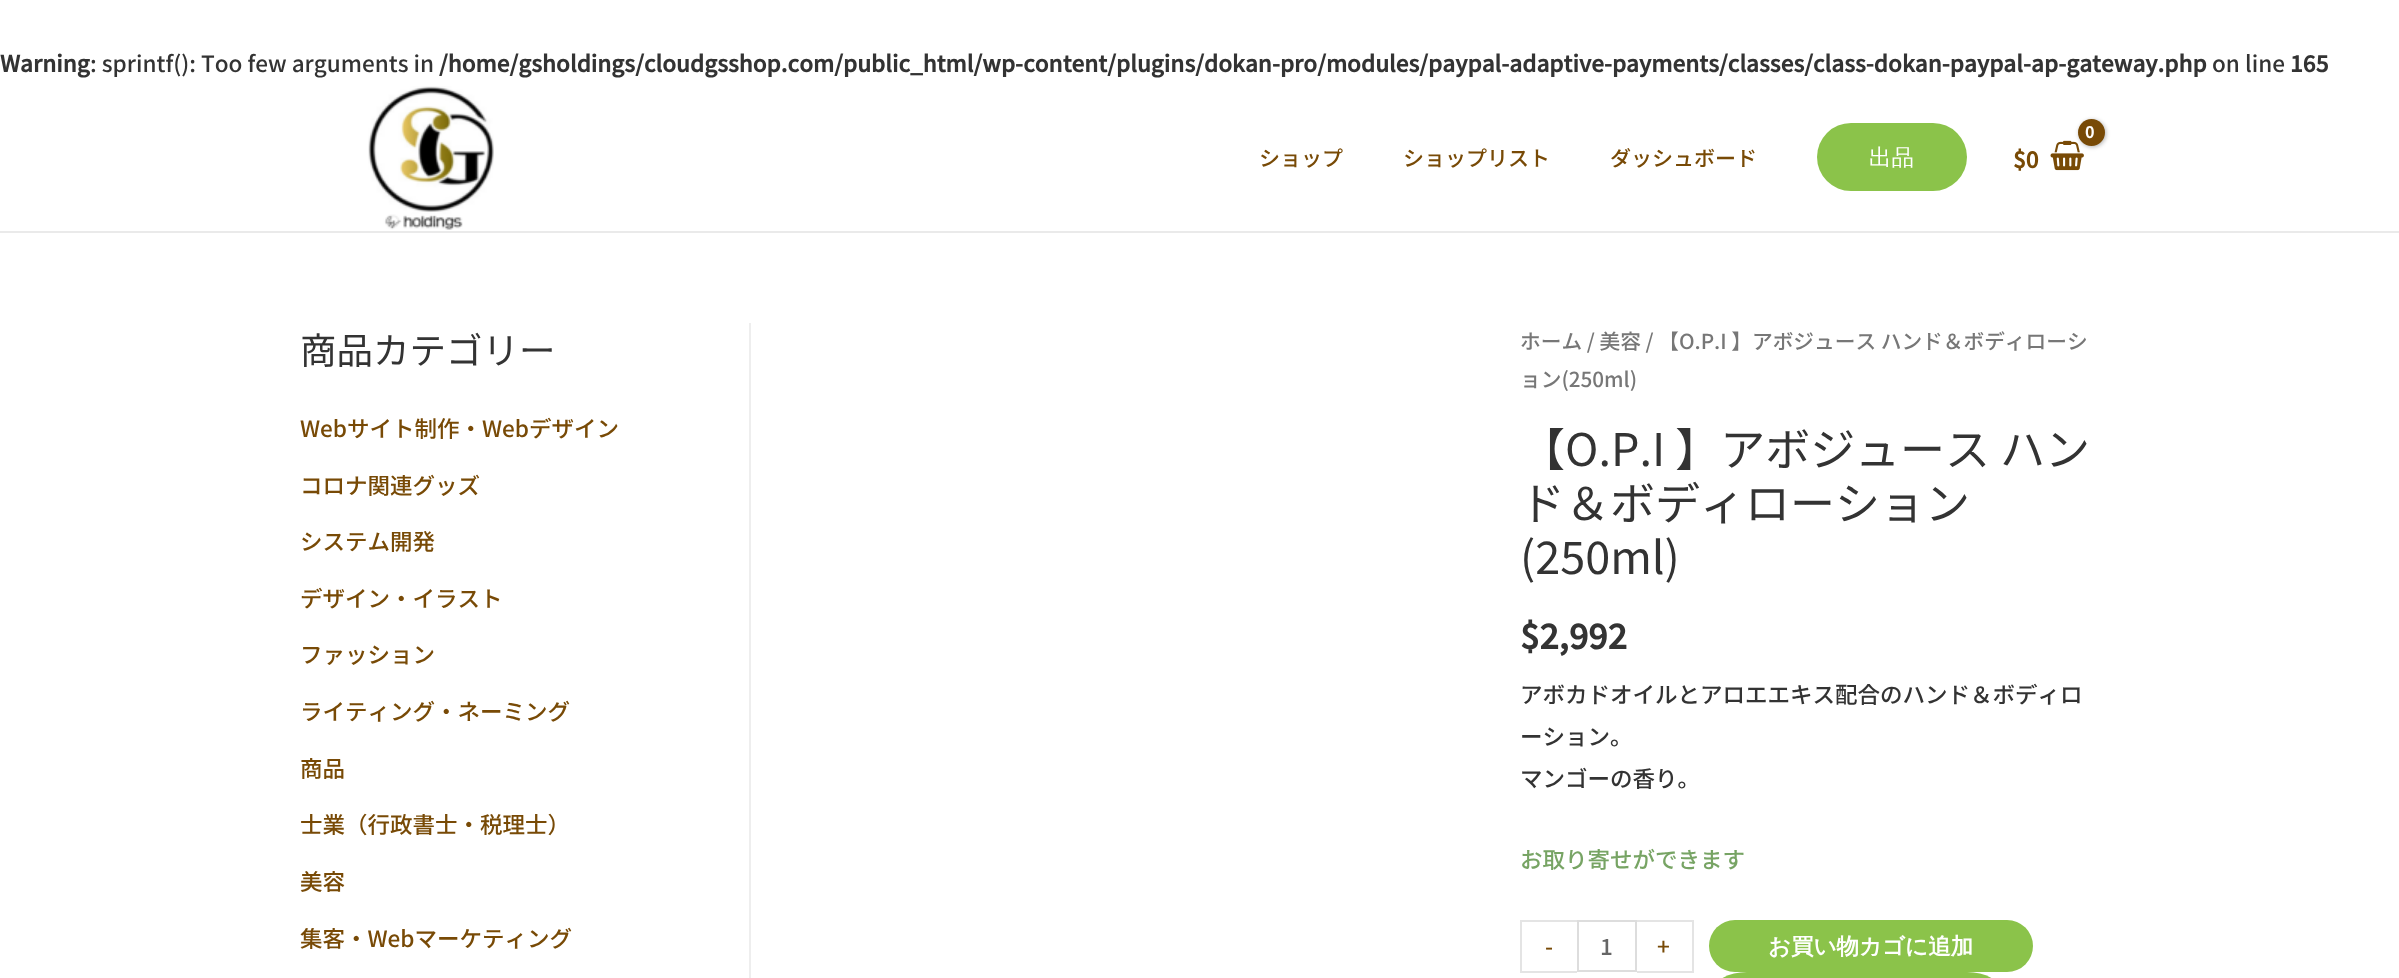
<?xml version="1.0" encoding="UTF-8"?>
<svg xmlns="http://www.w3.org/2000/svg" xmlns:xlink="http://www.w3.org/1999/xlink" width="2399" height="978">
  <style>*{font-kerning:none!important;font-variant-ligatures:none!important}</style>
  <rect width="100%" height="100%" fill="#ffffff" />
  <rect y="231" width="2399" height="2" fill="#eaeaea" />
  <image x="368" y="86" width="126" height="144" xlink:href="image1.png" />
  <rect x="1817" y="123" width="150" height="68" rx="34" fill="#8bc34a" />
  <image x="2050" y="140" width="34" height="31" xlink:href="image2.png" />
  <rect x="2079" y="120" width="27" height="27" rx="13.5" fill="#000000" fill-opacity="0.3" filter="blur(2px)" />
  <circle cx="2091.5" cy="132.5" r="13.5" fill="#784a06" />
  <rect x="749" y="323" width="2" height="655" fill="#eeeeee" />
  <rect x="1520" y="920" width="57" height="2" fill="#e4e4e4" />
  <rect x="1520" y="971" width="57" height="2" fill="#e4e4e4" />
  <rect x="1520" y="920" width="2" height="52" fill="#e4e4e4" />
  <rect x="1578" y="921" width="58" height="50" fill="none" stroke="#dddddd" stroke-width="2" />
  <rect x="1637" y="920" width="57" height="2" fill="#e4e4e4" />
  <rect x="1692" y="920" width="2" height="52" fill="#e4e4e4" />
  <rect x="1637" y="971" width="57" height="2" fill="#e4e4e4" />
  <rect x="1709" y="920" width="324" height="52" rx="26" fill="#8bc34a" />
  <rect x="1713" y="972" width="288" height="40" rx="34" fill="#8bc34a" />
  <text x="0" y="72" style="font-family: Noto Sans JP; font-size: 22.5px; font-weight: bold; fill: #333333">Warning</text>
  <text x="90" y="72" style="font-family: Noto Sans JP; font-size: 22.5px; font-weight: 500; fill: #333333">: sprintf(): Too few arguments in</text>
  <text x="439" y="72" style="font-family: Noto Sans JP; font-size: 22.5px; font-weight: bold; fill: #333333">/home/gsholdings/cloudgsshop.com/public_html/wp-content/plugins/dokan-pro/modules/paypal-adaptive-payments/classes/class-dokan-paypal-ap-gateway.php</text>
  <text x="2212" y="72" style="font-family: Noto Sans JP; font-size: 22.5px; font-weight: 500; fill: #333333">on line</text>
  <text x="2290" y="72" style="font-family: Noto Sans JP; font-size: 22.5px; font-weight: bold; fill: #333333">165</text>
  <text x="1259" y="166" style="font-family: Noto Sans JP; font-size: 21px; font-weight: 500; fill: #784a06">ショップ</text>
  <text x="1403" y="166" style="font-family: Noto Sans JP; font-size: 21px; font-weight: 500; fill: #784a06">ショップリスト</text>
  <text x="1610" y="166" style="font-family: Noto Sans JP; font-size: 21px; font-weight: 500; fill: #784a06">ダッシュボード</text>
  <text x="1869" y="165" style="font-family: WenQuanYi Zen Hei; font-size: 22.5px; font-weight: 500; fill: #ffffff">出品</text>
  <text x="2085" y="138" style="font-family: Noto Sans JP; font-size: 16px; font-weight: bold; letter-spacing: -1px; fill: #ffffff">0</text>
  <text x="2013" y="168" style="font-family: Noto Sans JP; font-size: 22.5px; font-weight: bold; fill: #784a06">$0</text>
  <text x="300" y="364" style="font-family: Noto Sans JP; font-size: 36.5px; fill: #333333">商品カテゴリー</text>
  <text x="300" y="437" style="font-family: Noto Sans JP; font-size: 22.5px; font-weight: 500; fill: #784a06">Webサイト制作・Webデザイン</text>
  <text x="300" y="494" style="font-family: Noto Sans JP; font-size: 22.5px; font-weight: 500; fill: #784a06">コロナ関連グッズ</text>
  <text x="300" y="550" style="font-family: Noto Sans JP; font-size: 22.5px; font-weight: 500; fill: #784a06">システム開発</text>
  <text x="300" y="607" style="font-family: Noto Sans JP; font-size: 22.5px; font-weight: 500; fill: #784a06">デザイン・イラスト</text>
  <text x="300" y="663" style="font-family: Noto Sans JP; font-size: 22.5px; font-weight: 500; fill: #784a06">ファッション</text>
  <text x="300" y="720" style="font-family: Noto Sans JP; font-size: 22.5px; font-weight: 500; fill: #784a06">ライティング・ネーミング</text>
  <text x="300" y="777" style="font-family: Noto Sans JP; font-size: 22.5px; font-weight: 500; fill: #784a06">商品</text>
  <text x="300" y="833" style="font-family: Noto Sans JP; font-size: 22.5px; font-weight: 500; fill: #784a06">士業（行政書士・税理士）</text>
  <text x="300" y="890" style="font-family: Noto Sans JP; font-size: 22.5px; font-weight: 500; fill: #784a06">美容</text>
  <text x="300" y="947" style="font-family: Noto Sans JP; font-size: 22.5px; font-weight: 500; fill: #784a06">集客・Webマーケティング</text>
  <text x="1520" y="349" style="font-family: Noto Sans JP; font-size: 20.7px; font-weight: 500; fill: #777777">ホーム / 美容 / 【O.P.I 】アボジ</text>
  <text x="1814" y="349" style="font-family: Noto Sans JP; font-size: 20.7px; font-weight: 500; fill: #777777">ュース ハンド＆ボディローシ</text>
  <text x="1520" y="387" style="font-family: Noto Sans JP; font-size: 20.7px; font-weight: 500; fill: #777777">ョン(250ml)</text>
  <text x="1520" y="466" style="font-family: Noto Sans JP; font-size: 45px; fill: #333333">【O.P.I 】アボジ</text>
  <text x="1855" y="466" style="font-family: Noto Sans JP; font-size: 45px; fill: #333333">ュース ハン</text>
  <text x="1520" y="520" style="font-family: Noto Sans JP; font-size: 45px; fill: #333333">ド＆ボディローション</text>
  <text x="1520" y="574" style="font-family: Noto Sans JP; font-size: 45px; fill: #333333">(250ml)</text>
  <text x="1520" y="649" style="font-family: Noto Sans JP; font-size: 34px; font-weight: bold; fill: #333333">$2,992</text>
  <text x="1520" y="703" style="font-family: Noto Sans JP; font-size: 22.5px; font-weight: 500; fill: #333333">アボカドオイルとアロエエキス配合のハンド＆ボディロ</text>
  <text x="1520" y="745" style="font-family: Noto Sans JP; font-size: 22.5px; font-weight: 500; fill: #333333">ーション。</text>
  <text x="1520" y="787" style="font-family: Noto Sans JP; font-size: 22.5px; font-weight: 500; fill: #333333">マンゴーの香り。</text>
  <text x="1520" y="868" style="font-family: Noto Sans JP; font-size: 22.5px; font-weight: 500; fill: #77a464">お取り寄せができます</text>
  <text x="1545" y="955" style="font-family: Noto Sans JP; font-size: 22.5px; font-weight: 500; fill: #784a06">-</text>
  <text x="1600" y="955" style="font-family: Noto Sans JP; font-size: 22.5px; font-weight: 500; fill: #666666">1</text>
  <text x="1657" y="955" style="font-family: Noto Sans JP; font-size: 22.5px; font-weight: 500; fill: #784a06">+</text>
  <text x="1768" y="954" style="font-family: WenQuanYi Zen Hei; font-size: 22.5px; font-weight: bold; fill: #ffffff">お買い物カゴに追加</text>
</svg>
